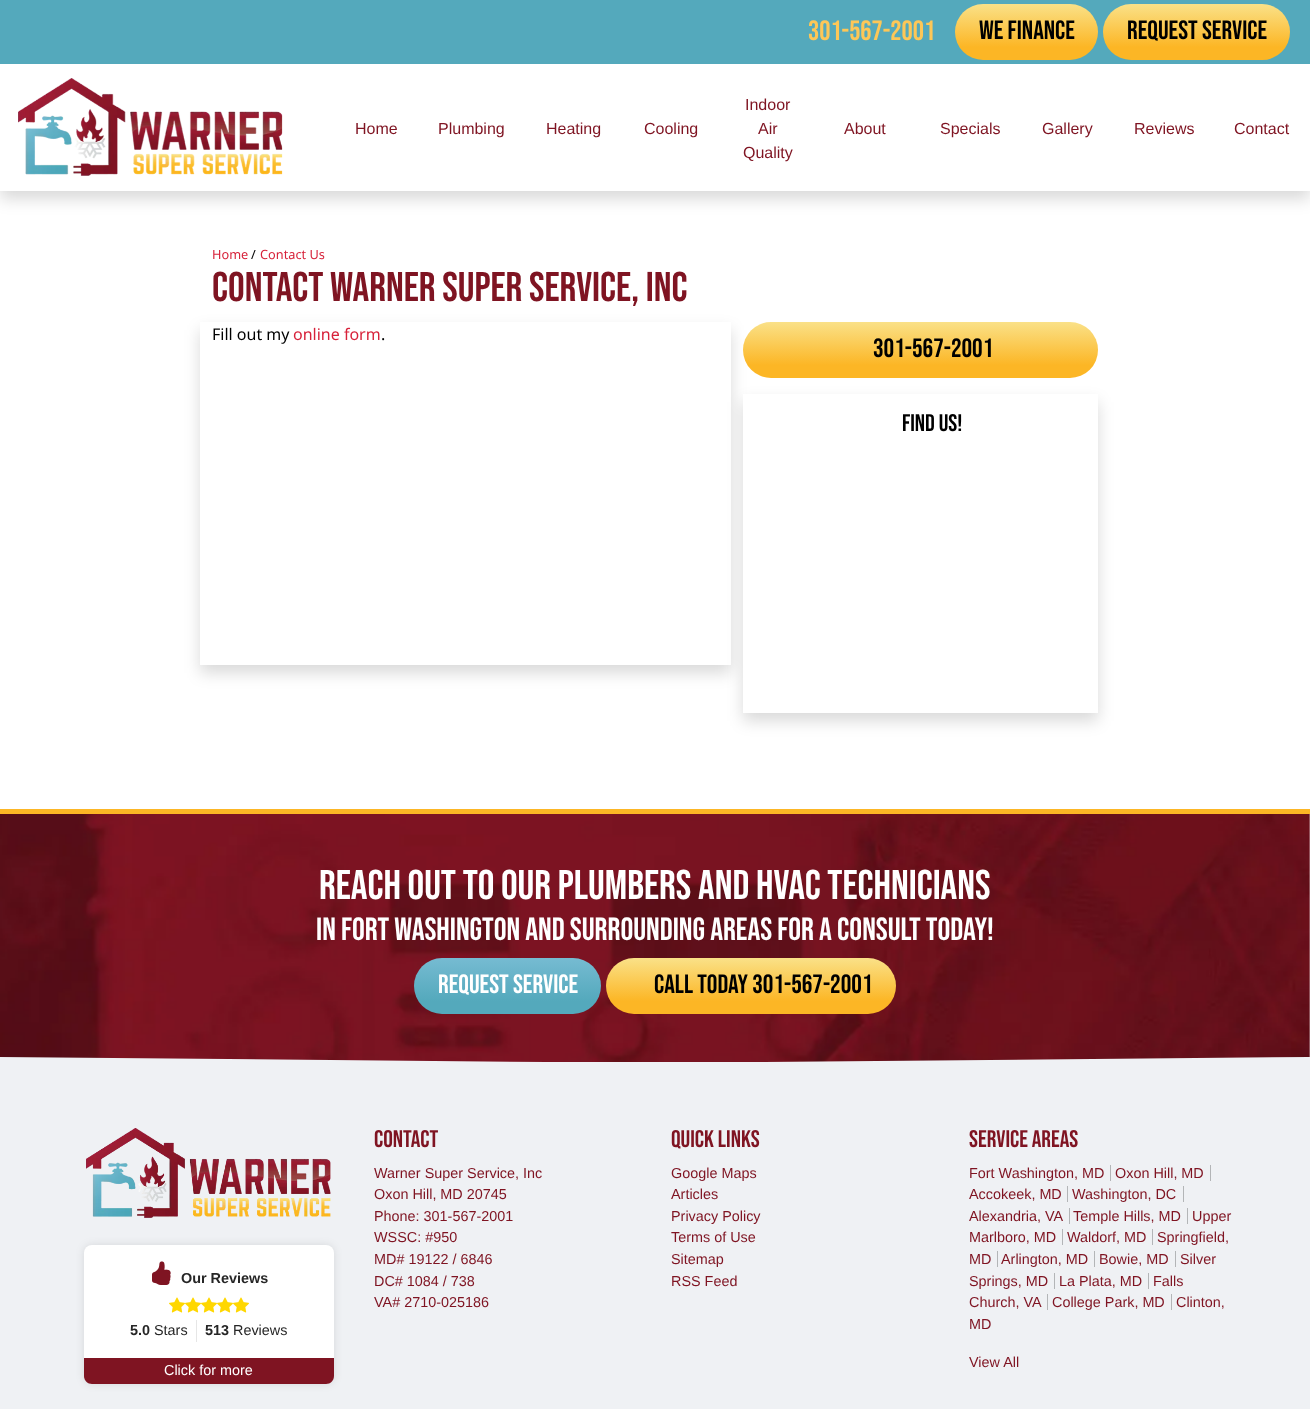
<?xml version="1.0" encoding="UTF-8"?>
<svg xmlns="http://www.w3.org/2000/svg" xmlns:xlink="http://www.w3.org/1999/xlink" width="1310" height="1409">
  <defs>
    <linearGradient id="g1" gradientUnits="userSpaceOnUse" x1="1027" y1="4" x2="1027" y2="60"><stop offset="0" stop-color="#fae188" /><stop offset="0.77" stop-color="#fcb625" /></linearGradient>
    <linearGradient id="g2" gradientUnits="userSpaceOnUse" x1="1197" y1="4" x2="1197" y2="60"><stop offset="0" stop-color="#fae188" /><stop offset="0.77" stop-color="#fcb625" /></linearGradient>
    <clipPath id="clip1"><path d="M 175 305 h 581 v 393 h -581 z m 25 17 h 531 v 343 h -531 z" clip-rule="evenodd" /></clipPath>
    <linearGradient id="g3" gradientUnits="userSpaceOnUse" x1="921" y1="322" x2="921" y2="378"><stop offset="0" stop-color="#fae188" /><stop offset="0.77" stop-color="#fcb625" /></linearGradient>
    <linearGradient id="g4" gradientUnits="userSpaceOnUse" x1="508" y1="958" x2="508" y2="1014"><stop offset="0" stop-color="#76bbd2" /><stop offset="0.77" stop-color="#54a9bc" /></linearGradient>
    <linearGradient id="g5" gradientUnits="userSpaceOnUse" x1="751" y1="958" x2="751" y2="1014"><stop offset="0" stop-color="#fae188" /><stop offset="0.77" stop-color="#fcb625" /></linearGradient>
    <clipPath id="clip2"><rect y="1056" width="1310" height="6" /></clipPath>
  </defs>
  <rect width="100%" height="100%" fill="#ffffff" />
  <rect y="8" width="1310" height="191" fill="#000000" fill-opacity="0.15" filter="blur(8px)" />
  <rect y="64" width="1310" height="127" fill="#ffffff" />
  <rect width="1310" height="64" fill="#54a9bc" />
  <rect x="955" y="4" width="143" height="56" rx="28" fill="url(#g1)" />
  <rect x="1103" y="4" width="187" height="56" rx="28" fill="url(#g2)" />
  <image x="18" y="78" width="265" height="98" xlink:href="image1.png" />
  <g clip-path="url(#clip1)">
    <rect x="200" y="330" width="531" height="343" fill="#000000" fill-opacity="0.15" filter="blur(8px)" />
  </g>
  <rect x="743" y="402" width="355" height="319" fill="#000000" fill-opacity="0.15" filter="blur(8px)" />
  <rect x="743" y="322" width="355" height="56" rx="28" fill="url(#g3)" />
  <rect x="743" y="394" width="355" height="319" fill="#ffffff" />
  <image x="0" y="814" width="1310" height="248" xlink:href="image2.png" />
  <rect y="809" width="1310" height="5" fill="#fcb625" />
  <rect x="414" y="958" width="187" height="56" rx="28" fill="url(#g4)" />
  <rect x="606" y="958" width="290" height="56" rx="28" fill="url(#g5)" />
  <g clip-path="url(#clip2)">
    <path d="M 1310 1057 l -655 6 l -655 -6 v 6 h 1310 z" fill="#eff1f4" />
  </g>
  <rect y="1062" width="1310" height="347" fill="#eff1f4" />
  <image x="86" y="1128" width="245" height="90" xlink:href="image3.png" />
  <rect x="84" y="1245" width="250" height="139" rx="8" fill="#000000" fill-opacity="0.1" filter="blur(4px)" />
  <rect x="84" y="1245" width="250" height="139" rx="8" fill="#ffffff" />
  <image x="152" y="1261" width="19" height="24" xlink:href="image4.png" />
  <image x="169" y="1297" width="16" height="16" xlink:href="image5.png" />
  <image x="185" y="1297" width="16" height="16" xlink:href="image5.png" />
  <image x="201" y="1297" width="16" height="16" xlink:href="image5.png" />
  <image x="217" y="1297" width="16" height="16" xlink:href="image5.png" />
  <image x="233" y="1297" width="16" height="16" xlink:href="image5.png" />
  <rect x="196" y="1320" width="1" height="22" fill="#e6e6e6" />
  <path d="M 84 1358 h 250 v 18 c 0 4.5 -3.5 8 -8 8 h -234 c -4.5 0 -8 -3.5 -8 -8 z" fill="#7f1422" />
  <rect x="1110" y="1165" width="1" height="16" fill="#b3b5b7" />
  <rect x="1210" y="1165" width="1" height="16" fill="#b3b5b7" />
  <rect x="1067" y="1186" width="1" height="16" fill="#b3b5b7" />
  <rect x="1183" y="1186" width="1" height="16" fill="#b3b5b7" />
  <rect x="1069" y="1208" width="1" height="16" fill="#b3b5b7" />
  <rect x="1187" y="1208" width="1" height="16" fill="#b3b5b7" />
  <rect x="1062" y="1229" width="1" height="16" fill="#b3b5b7" />
  <rect x="1152" y="1229" width="1" height="16" fill="#b3b5b7" />
  <rect x="997" y="1251" width="1" height="16" fill="#b3b5b7" />
  <rect x="1094" y="1251" width="1" height="16" fill="#b3b5b7" />
  <rect x="1175" y="1251" width="1" height="16" fill="#b3b5b7" />
  <rect x="1054" y="1273" width="1" height="16" fill="#b3b5b7" />
  <rect x="1148" y="1273" width="1" height="16" fill="#b3b5b7" />
  <rect x="1047" y="1294" width="1" height="16" fill="#b3b5b7" />
  <rect x="1171" y="1294" width="1" height="16" fill="#b3b5b7" />
  <text x="808" y="40" style="font-family: Bebas Neue; font-size: 28px; fill: #fdc757">301-567-2001</text>
  <text x="979" y="39" style="font-family: Bebas Neue; font-size: 26.5px; fill: #000000">We Finance</text>
  <text x="1127" y="39" style="font-family: Bebas Neue; font-size: 26.5px; fill: #000000">Request Service</text>
  <text x="355" y="134" style="font-family: Liberation Sans; font-size: 16px; fill: #7f1422">Home</text>
  <text x="438" y="134" style="font-family: Liberation Sans; font-size: 16px; fill: #7f1422">Plumbing</text>
  <text x="546" y="134" style="font-family: Liberation Sans; font-size: 16px; fill: #7f1422">Heating</text>
  <text x="644" y="134" style="font-family: Liberation Sans; font-size: 16px; fill: #7f1422">Cooling</text>
  <text x="745" y="110" style="font-family: Liberation Sans; font-size: 16px; fill: #7f1422">Indoor</text>
  <text x="758" y="134" style="font-family: Liberation Sans; font-size: 16px; fill: #7f1422">Air</text>
  <text x="743" y="158" style="font-family: Liberation Sans; font-size: 16px; fill: #7f1422">Quality</text>
  <text x="844" y="134" style="font-family: Liberation Sans; font-size: 16px; fill: #7f1422">About</text>
  <text x="940" y="134" style="font-family: Liberation Sans; font-size: 16px; fill: #7f1422">Specials</text>
  <text x="1042" y="134" style="font-family: Liberation Sans; font-size: 16px; fill: #7f1422">Gallery</text>
  <text x="1134" y="134" style="font-family: Liberation Sans; font-size: 16px; fill: #7f1422">Reviews</text>
  <text x="1234" y="134" style="font-family: Liberation Sans; font-size: 16px; fill: #7f1422">Contact</text>
  <text x="212" y="259" style="font-family: Noto Sans; font-size: 12.75px; fill: #d7223a">Home</text>
  <text x="251" y="259" style="font-family: Noto Sans; font-size: 12.75px; fill: #000000">/</text>
  <text x="260" y="259" style="font-family: Noto Sans; font-size: 12.75px; fill: #d7223a">Contact Us</text>
  <text x="212" y="301" style="font-family: Bebas Neue; font-size: 41.6px; fill: #7f1422">CONTACT WARNER SUPER SERVICE, INC</text>
  <text x="212" y="340" style="font-family: Noto Sans; font-size: 16px; fill: #000000">Fill out my</text>
  <text x="293" y="340" style="font-family: Noto Sans; font-size: 16px; fill: #d7223a">online form</text>
  <text x="381" y="340" style="font-family: Noto Sans; font-size: 16px; fill: #000000">.</text>
  <text x="873" y="357" style="font-family: Bebas Neue; font-size: 26.5px; fill: #000000">301-567-2001</text>
  <text x="902" y="431" style="font-family: Bebas Neue; font-size: 24px; fill: #000000">Find Us!</text>
  <text x="319" y="899" style="font-family: Bebas Neue; font-size: 41.6px; fill: #ffffff">REACH OUT TO OUR PLUMBERS AND HVAC TECHNICIANS</text>
  <text x="316" y="940" style="font-family: Bebas Neue; font-size: 32px; fill: #ffffff">IN FORT WASHINGTON AND SURROUNDING AREAS FOR A CONSULT TODAY!</text>
  <text x="438" y="993" style="font-family: Bebas Neue; font-size: 26.5px; fill: #ffffff">Request Service</text>
  <text x="654" y="993" style="font-family: Bebas Neue; font-size: 26.5px; fill: #000000">Call Today 301-567-2001</text>
  <text x="181" y="1283" style="font-family: Liberation Sans; font-size: 14.4px; font-weight: bold; fill: #262626">Our Reviews</text>
  <text x="130" y="1335" style="font-family: Liberation Sans; font-size: 14.4px; font-weight: bold; fill: #262626">5.0</text>
  <text x="154" y="1335" style="font-family: Liberation Sans; font-size: 14.4px; fill: #262626">Stars</text>
  <text x="205" y="1335" style="font-family: Liberation Sans; font-size: 14.4px; font-weight: bold; fill: #262626">513</text>
  <text x="233" y="1335" style="font-family: Liberation Sans; font-size: 14.4px; fill: #262626">Reviews</text>
  <text x="164" y="1375" style="font-family: Liberation Sans; font-size: 14.4px; fill: #ffffff">Click for more</text>
  <text x="374" y="1147" style="font-family: Bebas Neue; font-size: 24px; fill: #7f1422">Contact</text>
  <text x="374" y="1178" style="font-family: Liberation Sans; font-size: 14.4px; fill: #7f1422">Warner Super Service, Inc</text>
  <text x="374" y="1199" style="font-family: Liberation Sans; font-size: 14.4px; fill: #7f1422">Oxon Hill, MD 20745</text>
  <text x="374" y="1221" style="font-family: Liberation Sans; font-size: 14.4px; fill: #7f1422">Phone: 301-567-2001</text>
  <text x="374" y="1242" style="font-family: Liberation Sans; font-size: 14.4px; fill: #7f1422">WSSC: #950</text>
  <text x="374" y="1264" style="font-family: Liberation Sans; font-size: 14.4px; fill: #7f1422">MD# 19122 / 6846</text>
  <text x="374" y="1286" style="font-family: Liberation Sans; font-size: 14.4px; fill: #7f1422">DC# 1084 / 738</text>
  <text x="374" y="1307" style="font-family: Liberation Sans; font-size: 14.4px; fill: #7f1422">VA# 2710-025186</text>
  <text x="671" y="1147" style="font-family: Bebas Neue; font-size: 24px; fill: #7f1422">Quick Links</text>
  <text x="671" y="1178" style="font-family: Liberation Sans; font-size: 14.4px; fill: #7f1422">Google Maps</text>
  <text x="671" y="1199" style="font-family: Liberation Sans; font-size: 14.4px; fill: #7f1422">Articles</text>
  <text x="671" y="1221" style="font-family: Liberation Sans; font-size: 14.4px; fill: #7f1422">Privacy Policy</text>
  <text x="671" y="1242" style="font-family: Liberation Sans; font-size: 14.4px; fill: #7f1422">Terms of Use</text>
  <text x="671" y="1264" style="font-family: Liberation Sans; font-size: 14.4px; fill: #7f1422">Sitemap</text>
  <text x="671" y="1286" style="font-family: Liberation Sans; font-size: 14.4px; fill: #7f1422">RSS Feed</text>
  <text x="969" y="1147" style="font-family: Bebas Neue; font-size: 24px; fill: #7f1422">Service Areas</text>
  <text x="969" y="1178" style="font-family: Liberation Sans; font-size: 14.4px; fill: #7f1422">Fort Washington, MD</text>
  <text x="1115" y="1178" style="font-family: Liberation Sans; font-size: 14.4px; fill: #7f1422">Oxon Hill, MD</text>
  <text x="969" y="1199" style="font-family: Liberation Sans; font-size: 14.4px; fill: #7f1422">Accokeek, MD</text>
  <text x="1072" y="1199" style="font-family: Liberation Sans; font-size: 14.4px; fill: #7f1422">Washington, DC</text>
  <text x="969" y="1221" style="font-family: Liberation Sans; font-size: 14.4px; fill: #7f1422">Alexandria, VA</text>
  <text x="1073" y="1221" style="font-family: Liberation Sans; font-size: 14.4px; fill: #7f1422">Temple Hills, MD</text>
  <text x="1192" y="1221" style="font-family: Liberation Sans; font-size: 14.4px; fill: #7f1422">Upper</text>
  <text x="969" y="1242" style="font-family: Liberation Sans; font-size: 14.4px; fill: #7f1422">Marlboro, MD</text>
  <text x="1067" y="1242" style="font-family: Liberation Sans; font-size: 14.4px; fill: #7f1422">Waldorf, MD</text>
  <text x="1157" y="1242" style="font-family: Liberation Sans; font-size: 14.4px; fill: #7f1422">Springfield,</text>
  <text x="969" y="1264" style="font-family: Liberation Sans; font-size: 14.4px; fill: #7f1422">MD</text>
  <text x="1001" y="1264" style="font-family: Liberation Sans; font-size: 14.4px; fill: #7f1422">Arlington, MD</text>
  <text x="1099" y="1264" style="font-family: Liberation Sans; font-size: 14.4px; fill: #7f1422">Bowie, MD</text>
  <text x="1180" y="1264" style="font-family: Liberation Sans; font-size: 14.4px; fill: #7f1422">Silver</text>
  <text x="969" y="1286" style="font-family: Liberation Sans; font-size: 14.4px; fill: #7f1422">Springs, MD</text>
  <text x="1059" y="1286" style="font-family: Liberation Sans; font-size: 14.4px; fill: #7f1422">La Plata, MD</text>
  <text x="1153" y="1286" style="font-family: Liberation Sans; font-size: 14.4px; fill: #7f1422">Falls</text>
  <text x="969" y="1307" style="font-family: Liberation Sans; font-size: 14.4px; fill: #7f1422">Church, VA</text>
  <text x="1052" y="1307" style="font-family: Liberation Sans; font-size: 14.4px; fill: #7f1422">College Park, MD</text>
  <text x="1176" y="1307" style="font-family: Liberation Sans; font-size: 14.4px; fill: #7f1422">Clinton,</text>
  <text x="969" y="1329" style="font-family: Liberation Sans; font-size: 14.4px; fill: #7f1422">MD</text>
  <text x="969" y="1367" style="font-family: Liberation Sans; font-size: 14.4px; fill: #7f1422">View All</text>
</svg>
